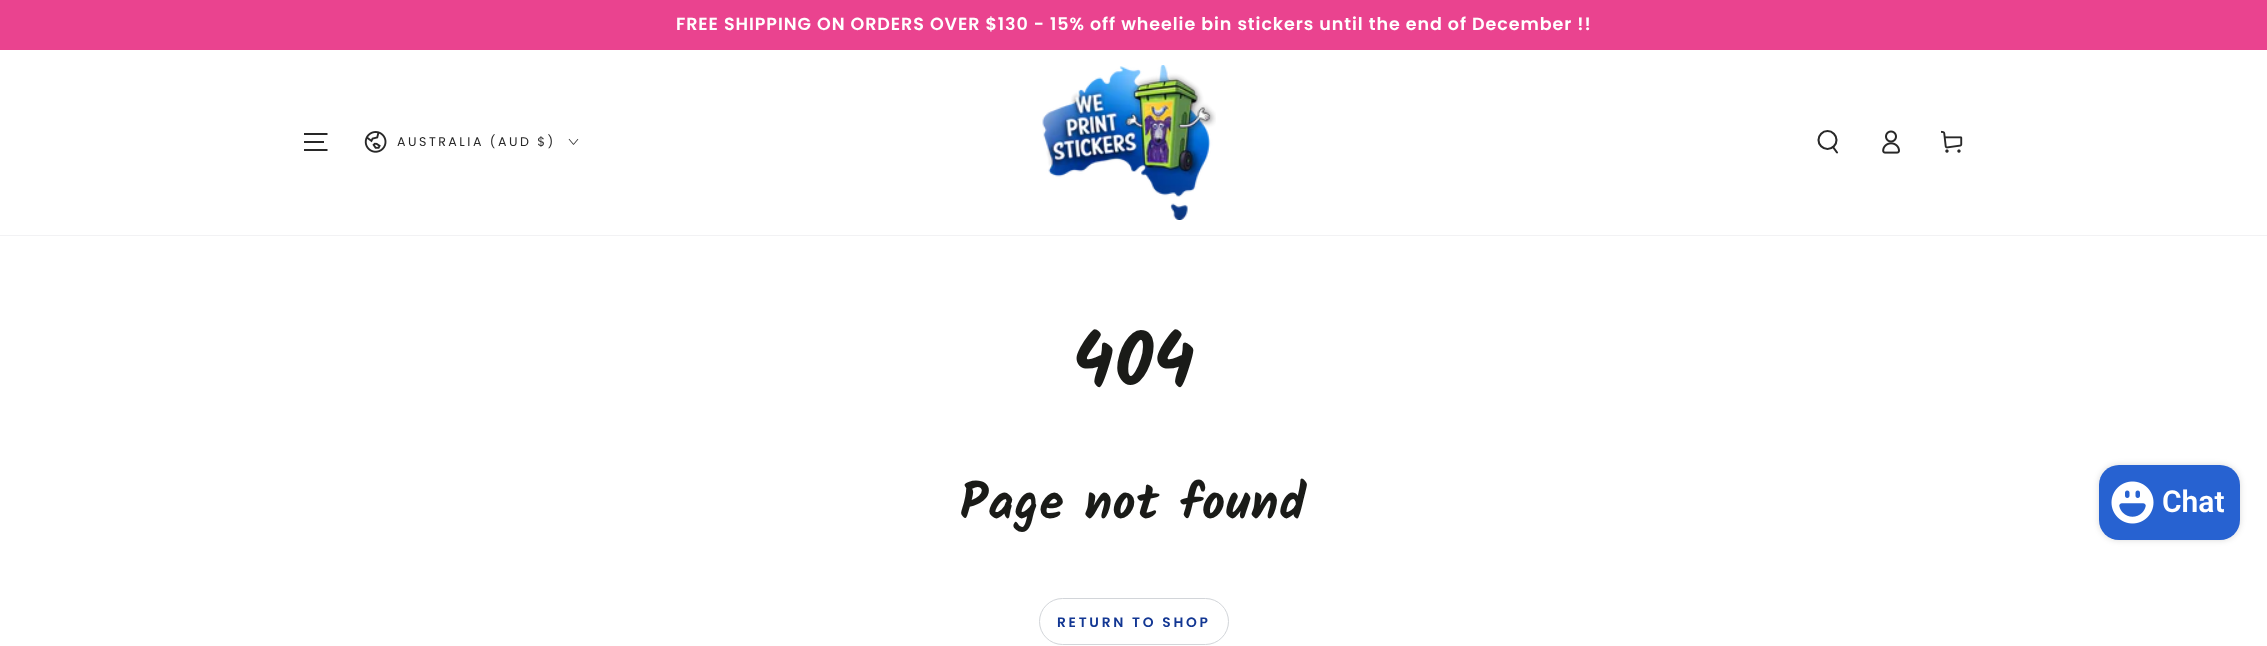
<?xml version="1.0" encoding="UTF-8"?>
<svg xmlns="http://www.w3.org/2000/svg" xmlns:xlink="http://www.w3.org/1999/xlink" width="2267" height="646">
  <rect width="100%" height="100%" fill="#ffffff" />
  <rect width="2267" height="50" fill="#ea438f" />
  <path d="M 0 235 v 1 h 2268 v -185 v 184 z" fill="#f2f2f4" />
  <path d="M 304 150 h 23.5 m -23.5 -8 h 20 m -20 -8 h 23.5" fill="none" stroke="#282828" stroke-width="1.9" />
  <image x="364" y="131" width="23" height="22" xlink:href="image1.png" />
  <image x="568" y="138" width="11" height="7" xlink:href="image2.png" />
  <image x="1042" y="65" width="174" height="155" xlink:href="image3.png" />
  <circle cx="1827.5" cy="140" r="9" fill="none" stroke="#282828" stroke-width="2.1" />
  <path d="M 1833 147 l 4 5.5" fill="none" stroke="#282828" stroke-width="2.1" stroke-linecap="round" />
  <image x="1882" y="130" width="18" height="24" xlink:href="image4.png" />
  <image x="1941" y="130" width="22" height="23" xlink:href="image5.png" />
  <rect x="1039.5" y="598.5" width="189" height="46" rx="23" fill="none" stroke="#d2d5d9" />
  <rect x="2099" y="465" width="141" height="75" rx="20" fill="#000000" fill-opacity="0.15" filter="blur(3px)" />
  <rect x="2099" y="465" width="141" height="75" rx="20" fill="#2762d1" />
  <image x="2111" y="481" width="43" height="43" xlink:href="image6.png" />
  <text x="676" y="30" style="font-family: Poppins; font-size: 17.5px; font-weight: 600; letter-spacing: 0.93px; fill: #ffffff">FREE SHIPPING ON ORDERS OVER $130 - 15% off wheelie bin stickers until the end of December !!</text>
  <text x="397" y="146" style="font-family: Poppins; font-size: 12.6px; letter-spacing: 2.5px; fill: #282828">AUSTRALIA (AUD $)</text>
  <text x="1073" y="386" style="font-family: Kalam; font-size: 75px; font-weight: bold; letter-spacing: 0.75px; fill: #1a1b18">404</text>
  <text x="960" y="519" style="font-family: Kalam; font-size: 50px; font-weight: bold; letter-spacing: 0.75px; fill: #1a1b18">Page not found</text>
  <text x="1057" y="627" style="font-family: Poppins; font-size: 13.75px; font-weight: 600; letter-spacing: 2.75px; fill: #133793">RETURN TO SHOP</text>
  <text x="2162" y="512" style="font-family: Roboto; font-size: 30px; font-weight: 600; fill: #ffffff">Chat</text>
</svg>
